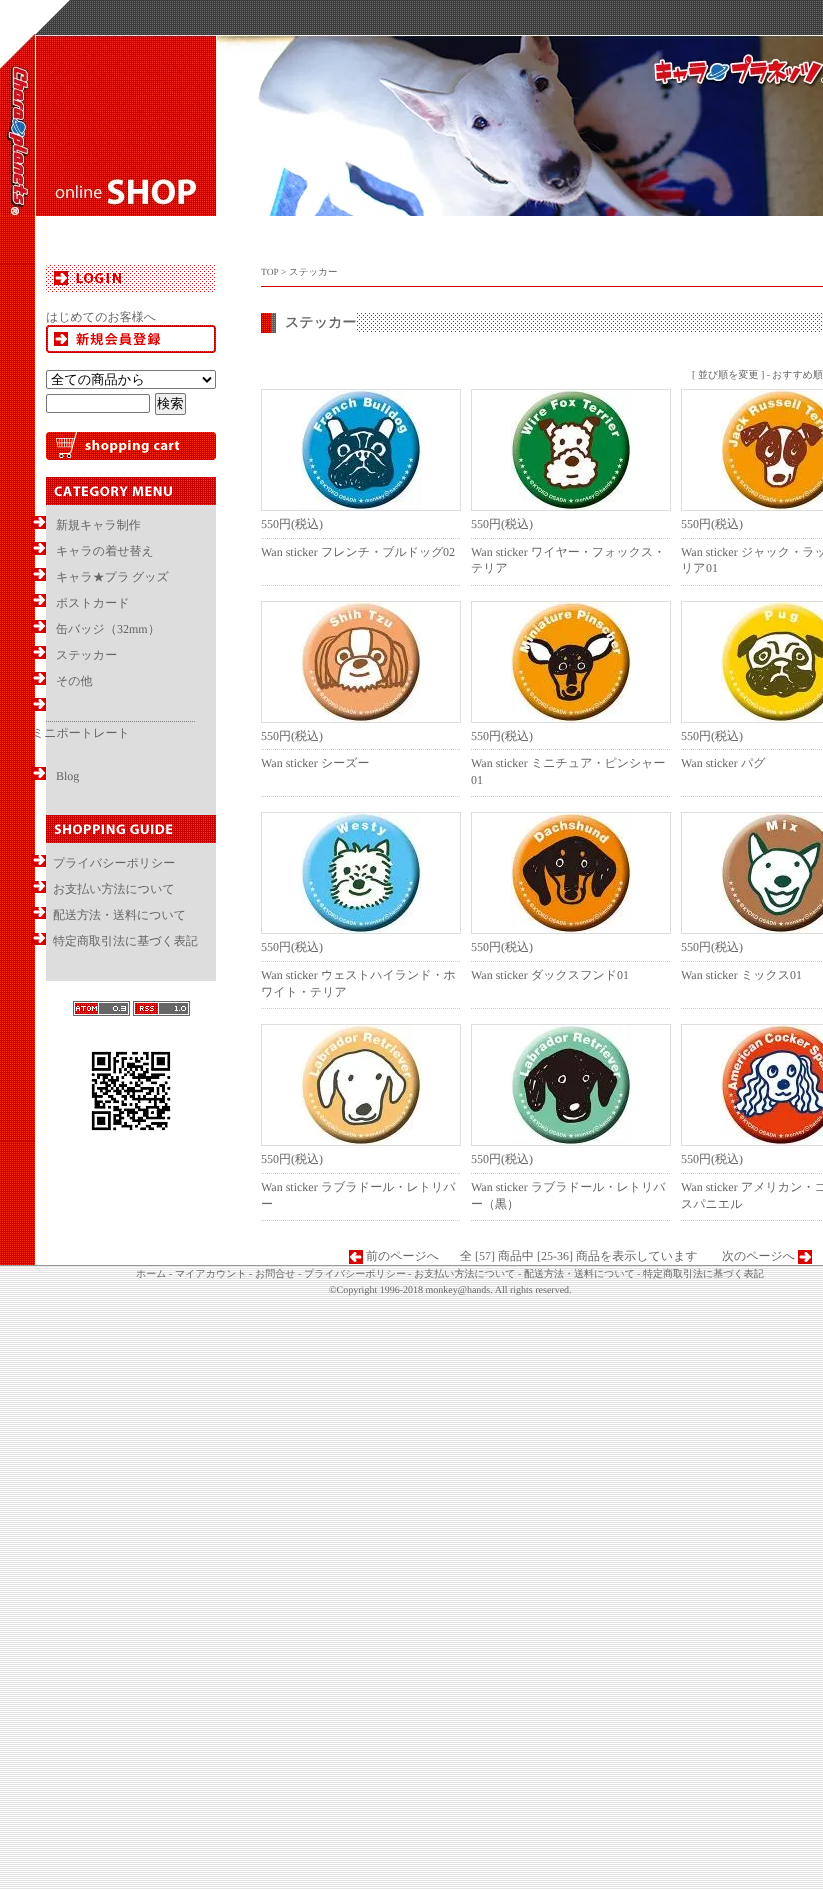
<?xml version="1.0" encoding="UTF-8"?>
<svg xmlns="http://www.w3.org/2000/svg" xmlns:xlink="http://www.w3.org/1999/xlink" width="823" height="1889">
  <rect width="100%" height="100%" fill="#ffffff" />
  <image x="0" y="1316" width="823" height="573" xlink:href="image1.png" />
  <image x="0" y="216" width="35" height="1049" xlink:href="image2.png" />
  <image x="0" y="0" width="823" height="35" xlink:href="image3.png" />
  <image x="0" y="35" width="823" height="181" xlink:href="image4.png" />
  <image x="0" y="264" width="35" height="877" xlink:href="image5.png" />
  <image x="46" y="265" width="169" height="27" xlink:href="image6.png" />
  <image x="46" y="325" width="170" height="28" xlink:href="image7.png" />
  <rect x="46.5" y="370.5" width="169" height="18" rx="1.5" fill="none" stroke="#767676" />
  <path d="M 203 377.5 l 4 4 l 4 -4" fill="none" stroke="#000000" stroke-width="2" />
  <rect x="46.5" y="394.5" width="103" height="18" rx="1.5" fill="none" stroke="#767676" />
  <rect x="155.5" y="393.5" width="30" height="21" rx="1.5" fill="#efefef" stroke="#767676" />
  <image x="46" y="432" width="170" height="28" xlink:href="image8.png" />
  <rect x="46" y="505" width="170" height="476" fill="#dddddd" />
  <image x="46" y="477" width="170" height="28" xlink:href="image9.png" />
  <image x="32" y="516" width="14" height="13" xlink:href="image10.png" />
  <image x="32" y="542" width="14" height="13" xlink:href="image10.png" />
  <image x="32" y="568" width="14" height="13" xlink:href="image10.png" />
  <image x="32" y="594" width="14" height="13" xlink:href="image10.png" />
  <image x="32" y="620" width="14" height="13" xlink:href="image10.png" />
  <image x="32" y="646" width="14" height="13" xlink:href="image10.png" />
  <image x="32" y="672" width="14" height="13" xlink:href="image10.png" />
  <image x="32" y="698" width="14" height="13" xlink:href="image10.png" />
  <path d="M 46 721.5 h 150" fill="none" stroke="#838383" stroke-dasharray="1 1" />
  <image x="32" y="767" width="14" height="13" xlink:href="image10.png" />
  <image x="46" y="815" width="170" height="28" xlink:href="image11.png" />
  <image x="32" y="855" width="14" height="12" xlink:href="image12.png" />
  <image x="32" y="881" width="14" height="12" xlink:href="image12.png" />
  <image x="32" y="907" width="14" height="12" xlink:href="image12.png" />
  <image x="32" y="933" width="14" height="12" xlink:href="image12.png" />
  <image x="73" y="1001" width="57" height="15" xlink:href="image13.png" />
  <image x="133" y="1001" width="57" height="15" xlink:href="image14.png" />
  <image x="91" y="1051" width="80" height="80" xlink:href="image15.png" />
  <rect x="261" y="286" width="562" height="1" fill="#cc0000" />
  <image x="356" y="313" width="466" height="19" xlink:href="image16.png" />
  <image x="261" y="313" width="15" height="20" xlink:href="image17.png" />
  <rect x="261.5" y="389.5" width="199" height="121" fill="none" stroke="#dddddd" />
  <image x="301" y="390" width="120" height="120" xlink:href="image18.png" />
  <path d="M 261 538.5 h 200" fill="none" stroke="#cccccc" stroke-dasharray="1 1" />
  <path d="M 261 585.5 h 200" fill="none" stroke="#cccccc" stroke-dasharray="1 1" />
  <rect x="471.5" y="389.5" width="199" height="121" fill="none" stroke="#dddddd" />
  <image x="511" y="390" width="120" height="120" xlink:href="image19.png" />
  <path d="M 471 538.5 h 200" fill="none" stroke="#cccccc" stroke-dasharray="1 1" />
  <path d="M 471 585.5 h 200" fill="none" stroke="#cccccc" stroke-dasharray="1 1" />
  <rect x="681.5" y="389.5" width="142" height="121" fill="none" stroke="#dddddd" />
  <image x="721" y="390" width="102" height="120" xlink:href="image20.png" />
  <path d="M 681 538.5 h 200" fill="none" stroke="#cccccc" stroke-dasharray="1 1" />
  <path d="M 681 585.5 h 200" fill="none" stroke="#cccccc" stroke-dasharray="1 1" />
  <rect x="261.5" y="601.5" width="199" height="121" fill="none" stroke="#dddddd" />
  <image x="301" y="602" width="120" height="120" xlink:href="image21.png" />
  <path d="M 261 749.5 h 200" fill="none" stroke="#cccccc" stroke-dasharray="1 1" />
  <path d="M 261 796.5 h 200" fill="none" stroke="#cccccc" stroke-dasharray="1 1" />
  <rect x="471.5" y="601.5" width="199" height="121" fill="none" stroke="#dddddd" />
  <image x="511" y="602" width="120" height="120" xlink:href="image22.png" />
  <path d="M 471 749.5 h 200" fill="none" stroke="#cccccc" stroke-dasharray="1 1" />
  <path d="M 471 796.5 h 200" fill="none" stroke="#cccccc" stroke-dasharray="1 1" />
  <rect x="681.5" y="601.5" width="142" height="121" fill="none" stroke="#dddddd" />
  <image x="721" y="602" width="102" height="120" xlink:href="image23.png" />
  <path d="M 681 749.5 h 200" fill="none" stroke="#cccccc" stroke-dasharray="1 1" />
  <path d="M 681 796.5 h 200" fill="none" stroke="#cccccc" stroke-dasharray="1 1" />
  <rect x="261.5" y="812.5" width="199" height="121" fill="none" stroke="#dddddd" />
  <image x="301" y="813" width="120" height="120" xlink:href="image24.png" />
  <path d="M 261 961.5 h 200" fill="none" stroke="#cccccc" stroke-dasharray="1 1" />
  <path d="M 261 1008.5 h 200" fill="none" stroke="#cccccc" stroke-dasharray="1 1" />
  <rect x="471.5" y="812.5" width="199" height="121" fill="none" stroke="#dddddd" />
  <image x="511" y="813" width="120" height="120" xlink:href="image25.png" />
  <path d="M 471 961.5 h 200" fill="none" stroke="#cccccc" stroke-dasharray="1 1" />
  <path d="M 471 1008.5 h 200" fill="none" stroke="#cccccc" stroke-dasharray="1 1" />
  <rect x="681.5" y="812.5" width="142" height="121" fill="none" stroke="#dddddd" />
  <image x="721" y="813" width="102" height="120" xlink:href="image26.png" />
  <path d="M 681 961.5 h 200" fill="none" stroke="#cccccc" stroke-dasharray="1 1" />
  <path d="M 681 1008.5 h 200" fill="none" stroke="#cccccc" stroke-dasharray="1 1" />
  <rect x="261.5" y="1024.5" width="199" height="121" fill="none" stroke="#dddddd" />
  <image x="301" y="1025" width="120" height="120" xlink:href="image27.png" />
  <path d="M 261 1173.5 h 200" fill="none" stroke="#cccccc" stroke-dasharray="1 1" />
  <path d="M 261 1220.5 h 200" fill="none" stroke="#cccccc" stroke-dasharray="1 1" />
  <rect x="471.5" y="1024.5" width="199" height="121" fill="none" stroke="#dddddd" />
  <image x="511" y="1025" width="120" height="120" xlink:href="image28.png" />
  <path d="M 471 1173.5 h 200" fill="none" stroke="#cccccc" stroke-dasharray="1 1" />
  <path d="M 471 1220.5 h 200" fill="none" stroke="#cccccc" stroke-dasharray="1 1" />
  <rect x="681.5" y="1024.5" width="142" height="121" fill="none" stroke="#dddddd" />
  <image x="721" y="1025" width="102" height="120" xlink:href="image29.png" />
  <path d="M 681 1173.5 h 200" fill="none" stroke="#cccccc" stroke-dasharray="1 1" />
  <path d="M 681 1220.5 h 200" fill="none" stroke="#cccccc" stroke-dasharray="1 1" />
  <image x="349" y="1250" width="14" height="14" xlink:href="image30.png" />
  <image x="798" y="1250" width="14" height="14" xlink:href="image31.png" />
  <image x="0" y="1266" width="823" height="50" xlink:href="image32.png" />
  <rect y="1265" width="823" height="1" fill="#999999" />
  <text x="46" y="321" style="font-family: WenQuanYi Zen Hei; font-size: 12px; font-weight: 500; fill: #666666">はじめてのお客様へ</text>
  <text x="51" y="384" style="font-family: WenQuanYi Zen Hei; font-size: 13.25px; font-weight: 500; fill: #000000">全ての商品から</text>
  <text x="157" y="408" style="font-family: WenQuanYi Zen Hei; font-size: 13.25px; font-weight: 500; fill: #000000">検索</text>
  <text x="56" y="529" style="font-family: WenQuanYi Zen Hei; font-size: 12px; font-weight: 500; fill: #666666">新規キャラ制作</text>
  <text x="56" y="555" style="font-family: WenQuanYi Zen Hei; font-size: 12px; font-weight: 500; fill: #666666">キャラの着せ替え</text>
  <text x="56" y="581" word-spacing="-1" style="font-family: WenQuanYi Zen Hei; font-size: 12px; font-weight: 500; fill: #666666">キャラ★プラ グッズ</text>
  <text x="56" y="607" style="font-family: WenQuanYi Zen Hei; font-size: 12px; font-weight: 500; fill: #666666">ポストカード</text>
  <text x="56" y="633" style="font-family: WenQuanYi Zen Hei; font-size: 12px; font-weight: 500; fill: #666666">缶バッジ（</text>
  <text x="117" y="633" style="font-family: Liberation Serif; font-size: 12px; fill: #666666">32mm</text>
  <text x="148" y="633" style="font-family: WenQuanYi Zen Hei; font-size: 12px; font-weight: 500; fill: #666666">）</text>
  <text x="56" y="659" style="font-family: WenQuanYi Zen Hei; font-size: 12px; font-weight: 500; fill: #666666">ステッカー</text>
  <text x="56" y="685" style="font-family: WenQuanYi Zen Hei; font-size: 12px; font-weight: 500; fill: #666666">その他</text>
  <text x="32" y="737" style="font-family: WenQuanYi Zen Hei; font-size: 12px; font-weight: 500; fill: #666666">ミニポートレート</text>
  <text x="56" y="780" style="font-family: Liberation Serif; font-size: 12px; fill: #666666">Blog</text>
  <text x="53" y="867" style="font-family: WenQuanYi Zen Hei; font-size: 12px; font-weight: 500; fill: #666666">プライバシーポリシー</text>
  <text x="53" y="893" style="font-family: WenQuanYi Zen Hei; font-size: 12px; font-weight: 500; fill: #666666">お支払い方法について</text>
  <text x="53" y="919" style="font-family: WenQuanYi Zen Hei; font-size: 12px; font-weight: 500; fill: #666666">配送方法・送料について</text>
  <text x="53" y="945" style="font-family: WenQuanYi Zen Hei; font-size: 12px; font-weight: 500; fill: #666666">特定商取引法に基づく表記</text>
  <text x="261" y="275" style="font-family: Liberation Serif; font-size: 9.5px; fill: #666666">TOP</text>
  <text x="281" y="275" style="font-family: Liberation Serif; font-size: 9.5px; fill: #666666">&gt;</text>
  <text x="289" y="275" style="font-family: WenQuanYi Zen Hei; font-size: 9.5px; font-weight: 500; fill: #666666">ステッカー</text>
  <text x="285" y="327" style="font-family: WenQuanYi Zen Hei; font-size: 14px; font-weight: bold; fill: #666666">ステッカー</text>
  <text x="692" y="378" style="font-family: Liberation Serif; font-size: 10px; fill: #666666">[</text>
  <text x="698" y="378" style="font-family: WenQuanYi Zen Hei; font-size: 10px; font-weight: 500; fill: #666666">並び順を変更</text>
  <text x="761" y="378" style="font-family: Liberation Serif; font-size: 10px; fill: #666666">] -</text>
  <text x="772" y="378" style="font-family: WenQuanYi Zen Hei; font-size: 10px; font-weight: 500; fill: #666666">おすすめ順</text>
  <text x="261" y="528" style="font-family: Liberation Serif; font-size: 12px; fill: #666666">550</text>
  <text x="279" y="528" style="font-family: WenQuanYi Zen Hei; font-size: 12px; font-weight: 500; fill: #666666">円</text>
  <text x="291" y="528" style="font-family: Liberation Serif; font-size: 12px; fill: #666666">(</text>
  <text x="295" y="528" style="font-family: WenQuanYi Zen Hei; font-size: 12px; font-weight: 500; fill: #666666">税込</text>
  <text x="319" y="528" style="font-family: Liberation Serif; font-size: 12px; fill: #666666">)</text>
  <text x="261" y="556" style="font-family: Liberation Serif; font-size: 12px; fill: #666666">Wan sticker</text>
  <text x="321" y="556" style="font-family: WenQuanYi Zen Hei; font-size: 12px; font-weight: 500; fill: #666666">フレンチ・ブルドッグ</text>
  <text x="443" y="556" style="font-family: Liberation Serif; font-size: 12px; fill: #666666">02</text>
  <text x="471" y="528" style="font-family: Liberation Serif; font-size: 12px; fill: #666666">550</text>
  <text x="489" y="528" style="font-family: WenQuanYi Zen Hei; font-size: 12px; font-weight: 500; fill: #666666">円</text>
  <text x="501" y="528" style="font-family: Liberation Serif; font-size: 12px; fill: #666666">(</text>
  <text x="505" y="528" style="font-family: WenQuanYi Zen Hei; font-size: 12px; font-weight: 500; fill: #666666">税込</text>
  <text x="529" y="528" style="font-family: Liberation Serif; font-size: 12px; fill: #666666">)</text>
  <text x="471" y="556" style="font-family: Liberation Serif; font-size: 12px; fill: #666666">Wan sticker</text>
  <text x="531" y="556" style="font-family: WenQuanYi Zen Hei; font-size: 12px; font-weight: 500; fill: #666666">ワイヤー・フォックス・</text>
  <text x="471" y="572" style="font-family: WenQuanYi Zen Hei; font-size: 12px; font-weight: 500; fill: #666666">テリア</text>
  <text x="681" y="528" style="font-family: Liberation Serif; font-size: 12px; fill: #666666">550</text>
  <text x="699" y="528" style="font-family: WenQuanYi Zen Hei; font-size: 12px; font-weight: 500; fill: #666666">円</text>
  <text x="711" y="528" style="font-family: Liberation Serif; font-size: 12px; fill: #666666">(</text>
  <text x="715" y="528" style="font-family: WenQuanYi Zen Hei; font-size: 12px; font-weight: 500; fill: #666666">税込</text>
  <text x="739" y="528" style="font-family: Liberation Serif; font-size: 12px; fill: #666666">)</text>
  <text x="681" y="556" style="font-family: Liberation Serif; font-size: 12px; fill: #666666">Wan sticker</text>
  <text x="741" y="556" style="font-family: WenQuanYi Zen Hei; font-size: 12px; font-weight: 500; fill: #666666">ジャック・ラッ</text>
  <text x="681" y="572" style="font-family: WenQuanYi Zen Hei; font-size: 12px; font-weight: 500; fill: #666666">リア</text>
  <text x="706" y="572" style="font-family: Liberation Serif; font-size: 12px; fill: #666666">01</text>
  <text x="261" y="740" style="font-family: Liberation Serif; font-size: 12px; fill: #666666">550</text>
  <text x="279" y="740" style="font-family: WenQuanYi Zen Hei; font-size: 12px; font-weight: 500; fill: #666666">円</text>
  <text x="291" y="740" style="font-family: Liberation Serif; font-size: 12px; fill: #666666">(</text>
  <text x="295" y="740" style="font-family: WenQuanYi Zen Hei; font-size: 12px; font-weight: 500; fill: #666666">税込</text>
  <text x="319" y="740" style="font-family: Liberation Serif; font-size: 12px; fill: #666666">)</text>
  <text x="261" y="767" style="font-family: Liberation Serif; font-size: 12px; fill: #666666">Wan sticker</text>
  <text x="321" y="767" style="font-family: WenQuanYi Zen Hei; font-size: 12px; font-weight: 500; fill: #666666">シーズー</text>
  <text x="471" y="740" style="font-family: Liberation Serif; font-size: 12px; fill: #666666">550</text>
  <text x="489" y="740" style="font-family: WenQuanYi Zen Hei; font-size: 12px; font-weight: 500; fill: #666666">円</text>
  <text x="501" y="740" style="font-family: Liberation Serif; font-size: 12px; fill: #666666">(</text>
  <text x="505" y="740" style="font-family: WenQuanYi Zen Hei; font-size: 12px; font-weight: 500; fill: #666666">税込</text>
  <text x="529" y="740" style="font-family: Liberation Serif; font-size: 12px; fill: #666666">)</text>
  <text x="471" y="767" style="font-family: Liberation Serif; font-size: 12px; fill: #666666">Wan sticker</text>
  <text x="531" y="767" style="font-family: WenQuanYi Zen Hei; font-size: 12px; font-weight: 500; fill: #666666">ミニチュア・ピンシャー</text>
  <text x="471" y="784" style="font-family: Liberation Serif; font-size: 12px; fill: #666666">01</text>
  <text x="681" y="740" style="font-family: Liberation Serif; font-size: 12px; fill: #666666">550</text>
  <text x="699" y="740" style="font-family: WenQuanYi Zen Hei; font-size: 12px; font-weight: 500; fill: #666666">円</text>
  <text x="711" y="740" style="font-family: Liberation Serif; font-size: 12px; fill: #666666">(</text>
  <text x="715" y="740" style="font-family: WenQuanYi Zen Hei; font-size: 12px; font-weight: 500; fill: #666666">税込</text>
  <text x="739" y="740" style="font-family: Liberation Serif; font-size: 12px; fill: #666666">)</text>
  <text x="681" y="767" style="font-family: Liberation Serif; font-size: 12px; fill: #666666">Wan sticker</text>
  <text x="741" y="767" style="font-family: WenQuanYi Zen Hei; font-size: 12px; font-weight: 500; fill: #666666">パグ</text>
  <text x="261" y="951" style="font-family: Liberation Serif; font-size: 12px; fill: #666666">550</text>
  <text x="279" y="951" style="font-family: WenQuanYi Zen Hei; font-size: 12px; font-weight: 500; fill: #666666">円</text>
  <text x="291" y="951" style="font-family: Liberation Serif; font-size: 12px; fill: #666666">(</text>
  <text x="295" y="951" style="font-family: WenQuanYi Zen Hei; font-size: 12px; font-weight: 500; fill: #666666">税込</text>
  <text x="319" y="951" style="font-family: Liberation Serif; font-size: 12px; fill: #666666">)</text>
  <text x="261" y="979" style="font-family: Liberation Serif; font-size: 12px; fill: #666666">Wan sticker</text>
  <text x="321" y="979" style="font-family: WenQuanYi Zen Hei; font-size: 12px; font-weight: 500; fill: #666666">ウェストハイランド・ホ</text>
  <text x="261" y="996" style="font-family: WenQuanYi Zen Hei; font-size: 12px; font-weight: 500; fill: #666666">ワイト・テリア</text>
  <text x="471" y="951" style="font-family: Liberation Serif; font-size: 12px; fill: #666666">550</text>
  <text x="489" y="951" style="font-family: WenQuanYi Zen Hei; font-size: 12px; font-weight: 500; fill: #666666">円</text>
  <text x="501" y="951" style="font-family: Liberation Serif; font-size: 12px; fill: #666666">(</text>
  <text x="505" y="951" style="font-family: WenQuanYi Zen Hei; font-size: 12px; font-weight: 500; fill: #666666">税込</text>
  <text x="529" y="951" style="font-family: Liberation Serif; font-size: 12px; fill: #666666">)</text>
  <text x="471" y="979" style="font-family: Liberation Serif; font-size: 12px; fill: #666666">Wan sticker</text>
  <text x="531" y="979" style="font-family: WenQuanYi Zen Hei; font-size: 12px; font-weight: 500; fill: #666666">ダックスフンド</text>
  <text x="617" y="979" style="font-family: Liberation Serif; font-size: 12px; fill: #666666">01</text>
  <text x="681" y="951" style="font-family: Liberation Serif; font-size: 12px; fill: #666666">550</text>
  <text x="699" y="951" style="font-family: WenQuanYi Zen Hei; font-size: 12px; font-weight: 500; fill: #666666">円</text>
  <text x="711" y="951" style="font-family: Liberation Serif; font-size: 12px; fill: #666666">(</text>
  <text x="715" y="951" style="font-family: WenQuanYi Zen Hei; font-size: 12px; font-weight: 500; fill: #666666">税込</text>
  <text x="739" y="951" style="font-family: Liberation Serif; font-size: 12px; fill: #666666">)</text>
  <text x="681" y="979" style="font-family: Liberation Serif; font-size: 12px; fill: #666666">Wan sticker</text>
  <text x="741" y="979" style="font-family: WenQuanYi Zen Hei; font-size: 12px; font-weight: 500; fill: #666666">ミックス</text>
  <text x="790" y="979" style="font-family: Liberation Serif; font-size: 12px; fill: #666666">01</text>
  <text x="261" y="1163" style="font-family: Liberation Serif; font-size: 12px; fill: #666666">550</text>
  <text x="279" y="1163" style="font-family: WenQuanYi Zen Hei; font-size: 12px; font-weight: 500; fill: #666666">円</text>
  <text x="291" y="1163" style="font-family: Liberation Serif; font-size: 12px; fill: #666666">(</text>
  <text x="295" y="1163" style="font-family: WenQuanYi Zen Hei; font-size: 12px; font-weight: 500; fill: #666666">税込</text>
  <text x="319" y="1163" style="font-family: Liberation Serif; font-size: 12px; fill: #666666">)</text>
  <text x="261" y="1191" style="font-family: Liberation Serif; font-size: 12px; fill: #666666">Wan sticker</text>
  <text x="321" y="1191" style="font-family: WenQuanYi Zen Hei; font-size: 12px; font-weight: 500; fill: #666666">ラブラドール・レトリバ</text>
  <text x="261" y="1208" style="font-family: WenQuanYi Zen Hei; font-size: 12px; font-weight: 500; fill: #666666">ー</text>
  <text x="471" y="1163" style="font-family: Liberation Serif; font-size: 12px; fill: #666666">550</text>
  <text x="489" y="1163" style="font-family: WenQuanYi Zen Hei; font-size: 12px; font-weight: 500; fill: #666666">円</text>
  <text x="501" y="1163" style="font-family: Liberation Serif; font-size: 12px; fill: #666666">(</text>
  <text x="505" y="1163" style="font-family: WenQuanYi Zen Hei; font-size: 12px; font-weight: 500; fill: #666666">税込</text>
  <text x="529" y="1163" style="font-family: Liberation Serif; font-size: 12px; fill: #666666">)</text>
  <text x="471" y="1191" style="font-family: Liberation Serif; font-size: 12px; fill: #666666">Wan sticker</text>
  <text x="531" y="1191" style="font-family: WenQuanYi Zen Hei; font-size: 12px; font-weight: 500; fill: #666666">ラブラドール・レトリバ</text>
  <text x="471" y="1208" style="font-family: WenQuanYi Zen Hei; font-size: 12px; font-weight: 500; fill: #666666">ー（黒）</text>
  <text x="681" y="1163" style="font-family: Liberation Serif; font-size: 12px; fill: #666666">550</text>
  <text x="699" y="1163" style="font-family: WenQuanYi Zen Hei; font-size: 12px; font-weight: 500; fill: #666666">円</text>
  <text x="711" y="1163" style="font-family: Liberation Serif; font-size: 12px; fill: #666666">(</text>
  <text x="715" y="1163" style="font-family: WenQuanYi Zen Hei; font-size: 12px; font-weight: 500; fill: #666666">税込</text>
  <text x="739" y="1163" style="font-family: Liberation Serif; font-size: 12px; fill: #666666">)</text>
  <text x="681" y="1191" style="font-family: Liberation Serif; font-size: 12px; fill: #666666">Wan sticker</text>
  <text x="741" y="1191" style="font-family: WenQuanYi Zen Hei; font-size: 12px; font-weight: 500; fill: #666666">アメリカン・コ</text>
  <text x="681" y="1208" style="font-family: WenQuanYi Zen Hei; font-size: 12px; font-weight: 500; fill: #666666">スパニエル</text>
  <text x="366" y="1260" style="font-family: WenQuanYi Zen Hei; font-size: 12px; font-weight: 500; fill: #666666">前のページへ</text>
  <text x="460" y="1260" style="font-family: WenQuanYi Zen Hei; font-size: 12px; font-weight: 500; fill: #666666">全</text>
  <text x="475" y="1260" style="font-family: Liberation Serif; font-size: 12px; fill: #666666">[57]</text>
  <text x="498" y="1260" style="font-family: WenQuanYi Zen Hei; font-size: 12px; font-weight: 500; fill: #666666">商品中</text>
  <text x="537" y="1260" style="font-family: Liberation Serif; font-size: 12px; fill: #666666">[25-36]</text>
  <text x="576" y="1260" style="font-family: WenQuanYi Zen Hei; font-size: 12px; font-weight: 500; fill: #666666">商品を表示しています</text>
  <text x="722" y="1260" style="font-family: WenQuanYi Zen Hei; font-size: 12px; font-weight: 500; fill: #666666">次のページへ</text>
  <text x="136" y="1277" style="font-family: WenQuanYi Zen Hei; font-size: 10px; font-weight: 500; fill: #666666">ホーム</text>
  <text x="169" y="1277" style="font-family: Liberation Serif; font-size: 10px; fill: #666666">-</text>
  <text x="175" y="1277" style="font-family: WenQuanYi Zen Hei; font-size: 10px; font-weight: 500; fill: #666666">マイアカウント</text>
  <text x="249" y="1277" style="font-family: Liberation Serif; font-size: 10px; fill: #666666">-</text>
  <text x="255" y="1277" style="font-family: WenQuanYi Zen Hei; font-size: 10px; font-weight: 500; fill: #666666">お問合せ</text>
  <text x="298" y="1277" style="font-family: Liberation Serif; font-size: 10px; fill: #666666">-</text>
  <text x="304" y="1277" style="font-family: WenQuanYi Zen Hei; font-size: 10px; font-weight: 500; fill: #666666">プライバシーポリシー</text>
  <text x="408" y="1277" style="font-family: Liberation Serif; font-size: 10px; fill: #666666">-</text>
  <text x="414" y="1277" style="font-family: WenQuanYi Zen Hei; font-size: 10px; font-weight: 500; fill: #666666">お支払い方法について</text>
  <text x="518" y="1277" style="font-family: Liberation Serif; font-size: 10px; fill: #666666">-</text>
  <text x="524" y="1277" style="font-family: WenQuanYi Zen Hei; font-size: 10px; font-weight: 500; fill: #666666">配送方法・送料について</text>
  <text x="637" y="1277" style="font-family: Liberation Serif; font-size: 10px; fill: #666666">-</text>
  <text x="643" y="1277" style="font-family: WenQuanYi Zen Hei; font-size: 10px; font-weight: 500; fill: #666666">特定商取引法に基づく表記</text>
  <text x="329" y="1293" style="font-family: Liberation Serif; font-size: 10px; fill: #666666">©Copyright 1996-2018 monkey@hands. All rights reserved.</text>
</svg>
